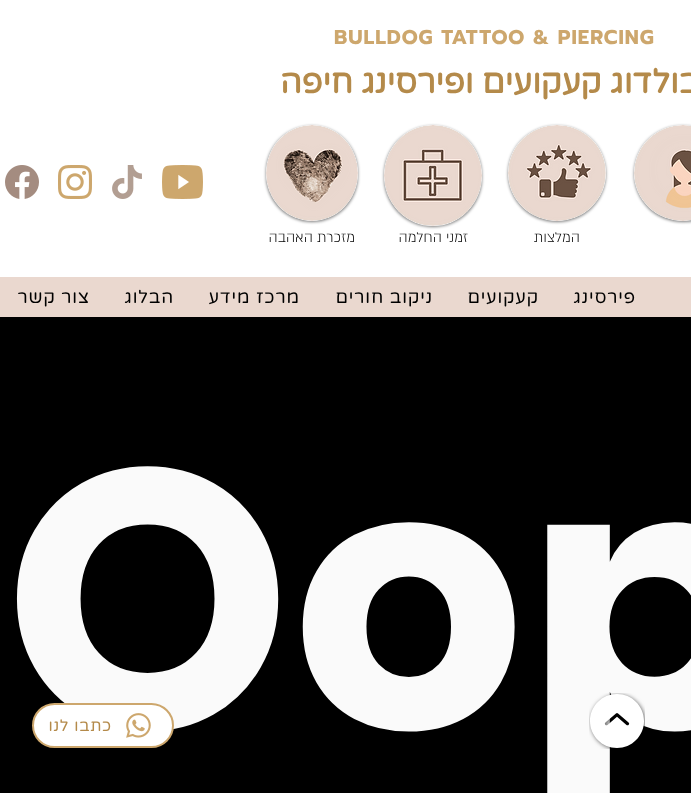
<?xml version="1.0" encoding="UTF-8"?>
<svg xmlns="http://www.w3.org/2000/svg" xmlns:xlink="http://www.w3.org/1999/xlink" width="691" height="793">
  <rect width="100%" height="100%" fill="#ffffff" />
  <rect x="634" y="126" width="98" height="96" rx="48" fill="#000000" fill-opacity="0.5" filter="blur(1.5px)" />
  <ellipse cx="683" cy="173" rx="49" ry="48" fill="#ffffff" />
  <image x="634" y="125" width="57" height="96" xlink:href="image1.png" />
  <rect x="508" y="126" width="98" height="96" rx="48" fill="#000000" fill-opacity="0.5" filter="blur(1.5px)" />
  <ellipse cx="557" cy="173" rx="49" ry="48" fill="#ffffff" />
  <image x="508" y="125" width="98" height="96" xlink:href="image2.png" />
  <rect x="384" y="126" width="98" height="101" rx="49" fill="#000000" fill-opacity="0.5" filter="blur(1.5px)" />
  <ellipse cx="433" cy="175.5" rx="49" ry="50.5" fill="#ffffff" />
  <image x="384" y="125" width="98" height="101" xlink:href="image3.png" />
  <rect x="266" y="126" width="92" height="96" rx="46" fill="#000000" fill-opacity="0.5" filter="blur(1.5px)" />
  <ellipse cx="312" cy="173" rx="46" ry="48" fill="#ffffff" />
  <image x="266" y="125" width="92" height="96" xlink:href="image4.png" />
  <image x="162" y="165" width="41" height="34" xlink:href="image5.png" />
  <image x="112" y="165" width="30" height="34" xlink:href="image6.png" />
  <image x="58" y="165" width="34" height="34" xlink:href="image7.png" />
  <image x="5" y="165" width="34" height="34" xlink:href="image8.png" />
  <rect y="277" width="691" height="40" fill="#ead8cf" />
  <rect y="317" width="691" height="476" fill="#000000" />
  <text x="334" y="44" style="font-family: Prompt; font-size: 20px; font-weight: bold; letter-spacing: 1px; fill: #cda76d">BULLDOG TATTOO &amp; PIERCING</text>
  <text x="700" y="93" style="font-family: Varela Round; font-size: 33px; font-weight: bold; direction: rtl; fill: #b48a4a">בולדוג קעקועים ופירסינג חיפה</text>
  <text x="580" y="242" style="font-family: 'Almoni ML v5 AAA'; font-size: 16px; font-weight: 300; direction: rtl; fill: #000000">המלצות</text>
  <text x="468" y="242" style="font-family: 'Almoni ML v5 AAA'; font-size: 16px; font-weight: 300; direction: rtl; fill: #000000">זמני החלמה</text>
  <text x="355" y="242" style="font-family: 'Almoni ML v5 AAA'; font-size: 16px; font-weight: 300; direction: rtl; fill: #000000">מזכרת האהבה</text>
  <text x="636" y="303" style="font-family: Varela Round; font-size: 18px; letter-spacing: 0.9px; direction: rtl; fill: #000000">פירסינג</text>
  <text x="539" y="303" style="font-family: Varela Round; font-size: 18px; letter-spacing: 0.9px; direction: rtl; fill: #000000">קעקועים</text>
  <text x="433" y="303" style="font-family: Varela Round; font-size: 18px; letter-spacing: 0.9px; direction: rtl; fill: #000000">ניקוב חורים</text>
  <text x="300" y="303" style="font-family: Varela Round; font-size: 18px; letter-spacing: 0.9px; direction: rtl; fill: #000000">מרכז מידע</text>
  <text x="174" y="303" style="font-family: Varela Round; font-size: 18px; letter-spacing: 0.9px; direction: rtl; fill: #000000">הבלוג</text>
  <text x="90" y="303" style="font-family: Varela Round; font-size: 18px; letter-spacing: 0.9px; direction: rtl; fill: #000000">צור קשר</text>
  <text x="3" y="729" style="font-family: Poppins; font-size: 366px; font-weight: bold; fill: #fafafa">Oop</text>
  <image x="589" y="693" width="56" height="56" xlink:href="image9.png" />
  <rect x="33" y="704" width="140" height="43" rx="21.5" fill="#ffffff" stroke="#cda76d" stroke-width="2" />
  <image x="126" y="713" width="25" height="25" xlink:href="image10.png" />
  <text x="112" y="731" style="font-family: Varela Round; font-size: 16px; letter-spacing: 0.75px; direction: rtl; fill: #b48a4a">כתבו לנו</text>
</svg>
